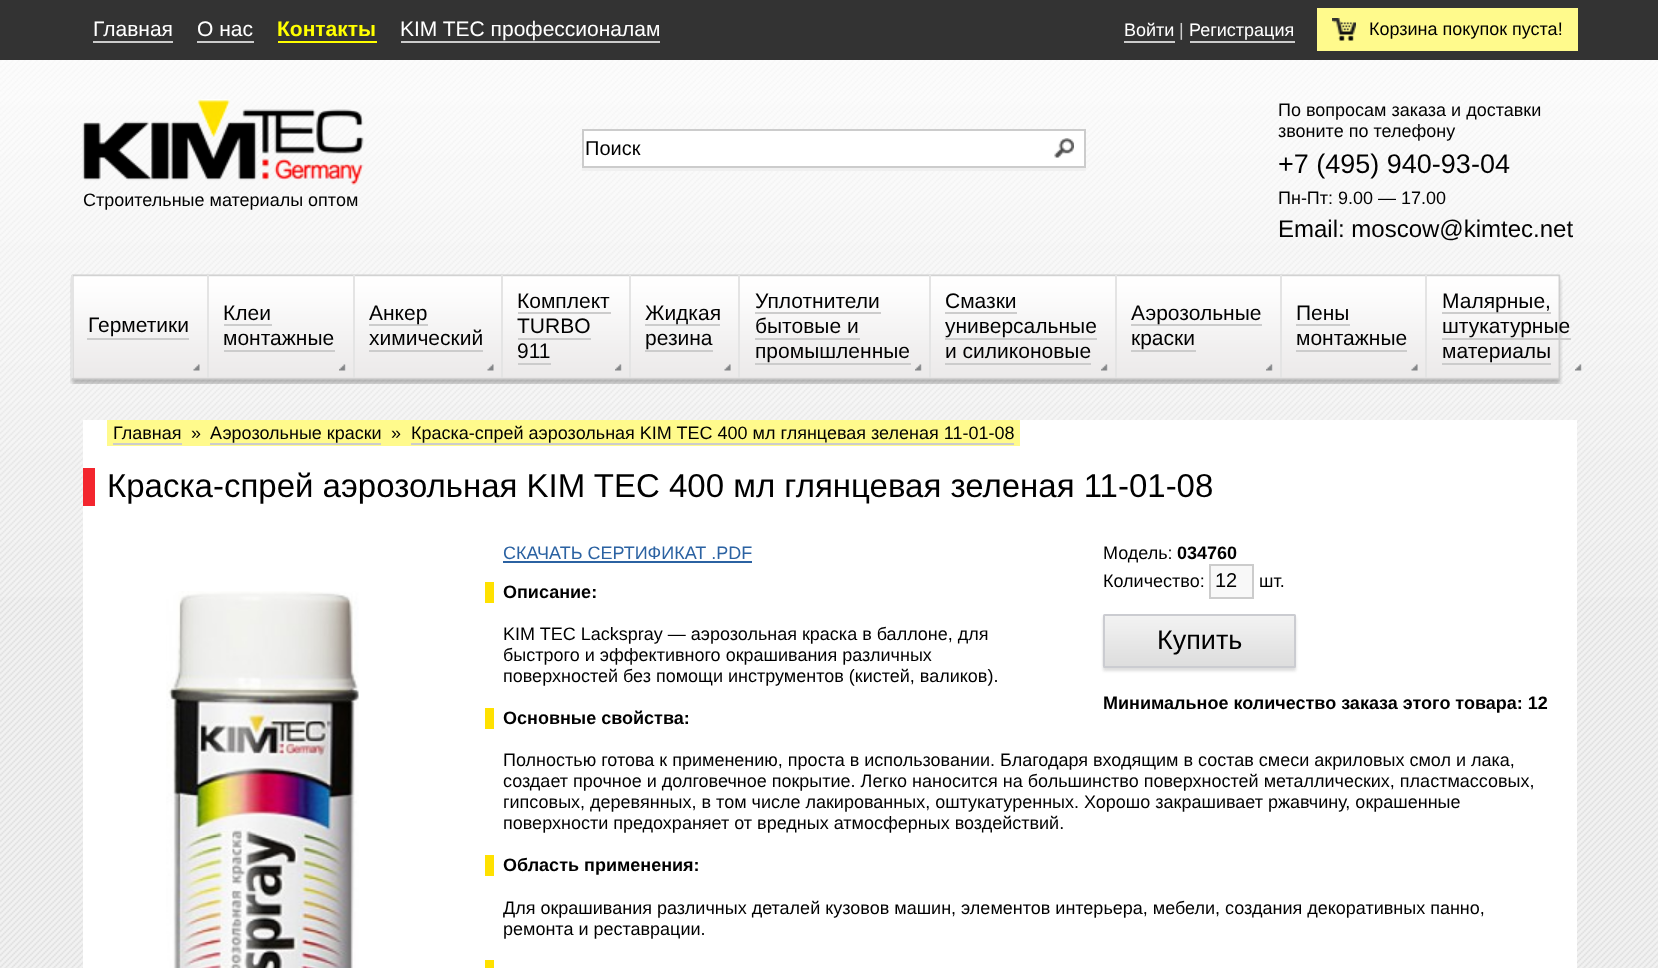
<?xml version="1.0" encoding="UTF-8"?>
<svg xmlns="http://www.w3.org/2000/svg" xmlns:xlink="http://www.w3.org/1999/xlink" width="1658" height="968">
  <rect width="100%" height="100%" fill="#ffffff" />
  <image x="0" y="597" width="1658" height="371" xlink:href="image1.png" />
  <image x="0" y="60" width="1658" height="537" xlink:href="image2.png" />
  <rect width="1658" height="60" fill="#333333" />
  <rect x="93" y="41" width="80" height="2" fill="#cccccc" />
  <rect x="197" y="41" width="57" height="2" fill="#cccccc" />
  <rect x="278" y="41" width="99" height="2" fill="#ffff00" />
  <rect x="401" y="41" width="259" height="2" fill="#cccccc" />
  <rect x="1124" y="41" width="51" height="2" fill="#cccccc" />
  <rect x="1190" y="41" width="105" height="2" fill="#cccccc" />
  <rect x="1317" y="8" width="261" height="43" fill="#fffa8c" />
  <image x="1332" y="18" width="24" height="23" xlink:href="image3.png" />
  <rect x="582" y="168" width="504" height="3" fill="#f0f0f0" />
  <rect x="583" y="130" width="502" height="37" fill="#ffffff" stroke="#cccccc" stroke-width="2" />
  <image x="1054" y="138" width="20" height="20" xlink:href="image4.png" />
  <image x="82" y="99" width="282" height="86" xlink:href="image5.png" />
  <image x="70" y="274" width="1493" height="110" xlink:href="image6.png" />
  <rect x="71" y="275" width="2" height="103" fill="#e4e4e4" />
  <image x="193" y="364" width="7" height="7" xlink:href="image7.png" />
  <rect x="87" y="338" width="102" height="2" fill="#cccccc" />
  <rect x="207" y="275" width="2" height="103" fill="#e4e4e4" />
  <image x="339" y="364" width="7" height="7" xlink:href="image8.png" />
  <rect x="224" y="324" width="48" height="2" fill="#cccccc" />
  <rect x="224" y="350" width="111" height="2" fill="#cccccc" />
  <rect x="353" y="275" width="2" height="103" fill="#e4e4e4" />
  <image x="487" y="364" width="7" height="7" xlink:href="image7.png" />
  <rect x="369" y="324" width="59" height="2" fill="#cccccc" />
  <rect x="369" y="350" width="114" height="2" fill="#cccccc" />
  <rect x="501" y="275" width="2" height="103" fill="#e4e4e4" />
  <image x="615" y="364" width="7" height="7" xlink:href="image9.png" />
  <rect x="518" y="312" width="93" height="2" fill="#cccccc" />
  <rect x="518" y="338" width="73" height="2" fill="#cccccc" />
  <rect x="518" y="363" width="33" height="2" fill="#cccccc" />
  <rect x="629" y="275" width="2" height="103" fill="#e4e4e4" />
  <image x="724" y="364" width="7" height="7" xlink:href="image10.png" />
  <rect x="645" y="324" width="75" height="2" fill="#cccccc" />
  <rect x="645" y="350" width="68" height="2" fill="#cccccc" />
  <rect x="738" y="275" width="2" height="103" fill="#e4e4e4" />
  <image x="915" y="364" width="7" height="7" xlink:href="image9.png" />
  <rect x="755" y="312" width="126" height="2" fill="#cccccc" />
  <rect x="755" y="338" width="105" height="2" fill="#cccccc" />
  <rect x="755" y="363" width="156" height="2" fill="#cccccc" />
  <rect x="929" y="275" width="2" height="103" fill="#e4e4e4" />
  <image x="1101" y="364" width="7" height="7" xlink:href="image8.png" />
  <rect x="945" y="312" width="72" height="2" fill="#cccccc" />
  <rect x="945" y="338" width="152" height="2" fill="#cccccc" />
  <rect x="945" y="363" width="146" height="2" fill="#cccccc" />
  <rect x="1115" y="275" width="2" height="103" fill="#e4e4e4" />
  <image x="1266" y="364" width="7" height="7" xlink:href="image8.png" />
  <rect x="1131" y="324" width="131" height="2" fill="#cccccc" />
  <rect x="1131" y="350" width="65" height="2" fill="#cccccc" />
  <rect x="1280" y="275" width="2" height="103" fill="#e4e4e4" />
  <image x="1411" y="364" width="7" height="7" xlink:href="image10.png" />
  <rect x="1296" y="324" width="54" height="2" fill="#cccccc" />
  <rect x="1296" y="350" width="111" height="2" fill="#cccccc" />
  <rect x="1425" y="275" width="2" height="103" fill="#e4e4e4" />
  <image x="1575" y="364" width="7" height="7" xlink:href="image11.png" />
  <rect x="1442" y="312" width="109" height="2" fill="#cccccc" />
  <rect x="1442" y="338" width="129" height="2" fill="#cccccc" />
  <rect x="1442" y="363" width="109" height="2" fill="#cccccc" />
  <rect x="83" y="420" width="1494" height="548" fill="#ffffff" />
  <rect x="107" y="420" width="913" height="26" fill="#fffa8c" />
  <rect x="113" y="443" width="69" height="2" fill="#cccccc" />
  <rect x="210" y="443" width="171" height="2" fill="#cccccc" />
  <rect x="411" y="443" width="603" height="2" fill="#cccccc" />
  <rect x="83" y="468" width="12" height="38" fill="#f3262e" />
  <image x="166" y="591" width="193" height="377" xlink:href="image12.png" />
  <rect x="503" y="561" width="249" height="2" fill="#2b62a2" />
  <rect x="1210" y="565" width="43" height="33" fill="#f8f8f8" stroke="#cccccc" stroke-width="2" />
  <rect x="1103" y="617" width="193" height="54" rx="1.5" fill="#dddddd" filter="blur(1.5px)" />
  <image x="1102" y="615" width="194" height="51" xlink:href="image13.png" />
  <rect x="1104" y="615" width="191" height="52" rx="0.5" fill="none" stroke="#cbccd1" stroke-width="2" />
  <rect x="485" y="582" width="9" height="21" fill="#ffe100" />
  <rect x="485" y="708" width="9" height="21" fill="#ffe100" />
  <rect x="485" y="855" width="9" height="21" fill="#ffe100" />
  <rect x="485" y="960" width="9" height="8" fill="#ffe100" />
  <text x="93" y="36" style="font-family: Liberation Sans; font-size: 21px; fill: #ffffff">Главная</text>
  <text x="197" y="36" style="font-family: Liberation Sans; font-size: 21px; fill: #ffffff">О нас</text>
  <text x="277" y="36" style="font-family: Liberation Sans; font-size: 21px; font-weight: bold; fill: #ffff00">Контакты</text>
  <text x="400" y="36" style="font-family: Liberation Sans; font-size: 21px; fill: #ffffff">KIM TEC профессионалам</text>
  <text x="1124" y="36" style="font-family: Liberation Sans; font-size: 18px; fill: #ffffff">Войти</text>
  <text x="1179" y="36" style="font-family: Liberation Sans; font-size: 18px; fill: #cccccc">|</text>
  <text x="1189" y="36" style="font-family: Liberation Sans; font-size: 18px; fill: #ffffff">Регистрация</text>
  <text x="1369" y="35" style="font-family: Liberation Sans; font-size: 18px; fill: #000000">Корзина покупок пуста!</text>
  <text x="585" y="155" style="font-family: Liberation Sans; font-size: 20px; fill: #000000">Поиск</text>
  <text x="1278" y="116" style="font-family: Liberation Sans; font-size: 18px; fill: #000000">По вопросам заказа и доставки</text>
  <text x="1278" y="137" style="font-family: Liberation Sans; font-size: 18px; fill: #000000">звоните по телефону</text>
  <text x="1278" y="173" style="font-family: Liberation Sans; font-size: 27px; fill: #000000">+7 (495) 940-93-04</text>
  <text x="1278" y="204" style="font-family: Liberation Sans; font-size: 18px; fill: #000000">Пн-Пт: 9.00 — 17.00</text>
  <text x="1278" y="237" style="font-family: Liberation Sans; font-size: 24px; fill: #000000">Email: moscow@kimtec.net</text>
  <text x="83" y="206" style="font-family: Liberation Sans; font-size: 18px; fill: #000000">Строительные материалы оптом</text>
  <text x="88" y="332" style="font-family: Liberation Sans; font-size: 21px; fill: #000000">Герметики</text>
  <text x="223" y="320" style="font-family: Liberation Sans; font-size: 21px; fill: #000000">Клеи</text>
  <text x="223" y="345" style="font-family: Liberation Sans; font-size: 21px; fill: #000000">монтажные</text>
  <text x="369" y="320" style="font-family: Liberation Sans; font-size: 21px; fill: #000000">Анкер</text>
  <text x="369" y="345" style="font-family: Liberation Sans; font-size: 21px; fill: #000000">химический</text>
  <text x="517" y="308" style="font-family: Liberation Sans; font-size: 21px; fill: #000000">Комплект</text>
  <text x="517" y="333" style="font-family: Liberation Sans; font-size: 21px; fill: #000000">TURBO</text>
  <text x="517" y="358" style="font-family: Liberation Sans; font-size: 21px; fill: #000000">911</text>
  <text x="645" y="320" style="font-family: Liberation Sans; font-size: 21px; fill: #000000">Жидкая</text>
  <text x="645" y="345" style="font-family: Liberation Sans; font-size: 21px; fill: #000000">резина</text>
  <text x="755" y="308" style="font-family: Liberation Sans; font-size: 21px; fill: #000000">Уплотнители</text>
  <text x="755" y="333" style="font-family: Liberation Sans; font-size: 21px; fill: #000000">бытовые и</text>
  <text x="755" y="358" style="font-family: Liberation Sans; font-size: 21px; fill: #000000">промышленные</text>
  <text x="945" y="308" style="font-family: Liberation Sans; font-size: 21px; fill: #000000">Смазки</text>
  <text x="945" y="333" style="font-family: Liberation Sans; font-size: 21px; fill: #000000">универсальные</text>
  <text x="945" y="358" style="font-family: Liberation Sans; font-size: 21px; fill: #000000">и силиконовые</text>
  <text x="1131" y="320" style="font-family: Liberation Sans; font-size: 21px; fill: #000000">Аэрозольные</text>
  <text x="1131" y="345" style="font-family: Liberation Sans; font-size: 21px; fill: #000000">краски</text>
  <text x="1296" y="320" style="font-family: Liberation Sans; font-size: 21px; fill: #000000">Пены</text>
  <text x="1296" y="345" style="font-family: Liberation Sans; font-size: 21px; fill: #000000">монтажные</text>
  <text x="1442" y="308" style="font-family: Liberation Sans; font-size: 21px; fill: #000000">Малярные,</text>
  <text x="1442" y="333" style="font-family: Liberation Sans; font-size: 21px; fill: #000000">штукатурные</text>
  <text x="1442" y="358" style="font-family: Liberation Sans; font-size: 21px; fill: #000000">материалы</text>
  <text x="113" y="439" style="font-family: Liberation Sans; font-size: 18px; fill: #000000">Главная</text>
  <text x="191" y="439" style="font-family: Liberation Sans; font-size: 18px; fill: #000000">»</text>
  <text x="210" y="439" style="font-family: Liberation Sans; font-size: 18px; fill: #000000">Аэрозольные краски</text>
  <text x="391" y="439" style="font-family: Liberation Sans; font-size: 18px; fill: #000000">»</text>
  <text x="411" y="439" style="font-family: Liberation Sans; font-size: 18px; fill: #000000">Краска-спрей аэрозольная KIM TEC 400 мл глянцевая зеленая 11-01-08</text>
  <text x="107" y="497" style="font-family: Liberation Sans; font-size: 33px; fill: #000000">Краска-спрей аэрозольная KIM TEC 400 мл глянцевая зеленая 11-01-08</text>
  <text x="503" y="559" style="font-family: Liberation Sans; font-size: 18px; fill: #2b62a2">СКАЧАТЬ СЕРТИФИКАТ .PDF</text>
  <text x="1103" y="559" style="font-family: Liberation Sans; font-size: 18px; fill: #000000">Модель:</text>
  <text x="1177" y="559" style="font-family: Liberation Sans; font-size: 18px; font-weight: bold; fill: #000000">034760</text>
  <text x="1103" y="587" style="font-family: Liberation Sans; font-size: 18px; fill: #000000">Количество:</text>
  <text x="1215" y="587" style="font-family: Liberation Sans; font-size: 20px; fill: #000000">12</text>
  <text x="1259" y="587" style="font-family: Liberation Sans; font-size: 18px; fill: #000000">шт.</text>
  <text x="1157" y="649" style="font-family: Liberation Sans; font-size: 27px; fill: #000000">Купить</text>
  <text x="1103" y="709" style="font-family: Liberation Sans; font-size: 18px; font-weight: bold; fill: #000000">Минимальное количество заказа этого товара: 12</text>
  <text x="503" y="598" style="font-family: Liberation Sans; font-size: 18px; font-weight: bold; fill: #000000">Описание:</text>
  <text x="503" y="640" style="font-family: Liberation Sans; font-size: 18px; fill: #000000">KIM TEC Lackspray — аэрозольная краска в баллоне, для</text>
  <text x="503" y="661" style="font-family: Liberation Sans; font-size: 18px; fill: #000000">быстрого и эффективного окрашивания различных</text>
  <text x="503" y="682" style="font-family: Liberation Sans; font-size: 18px; fill: #000000">поверхностей без помощи инструментов (кистей, валиков).</text>
  <text x="503" y="724" style="font-family: Liberation Sans; font-size: 18px; font-weight: bold; fill: #000000">Основные свойства:</text>
  <text x="503" y="766" style="font-family: Liberation Sans; font-size: 18px; fill: #000000">Полностью готова к применению, проста в использовании. Благодаря входящим в состав смеси акриловых смол и лака,</text>
  <text x="503" y="787" style="font-family: Liberation Sans; font-size: 18px; fill: #000000">создает прочное и долговечное покрытие. Легко наносится на большинство поверхностей металлических, пластмассовых,</text>
  <text x="503" y="808" style="font-family: Liberation Sans; font-size: 18px; fill: #000000">гипсовых, деревянных, в том числе лакированных, оштукатуренных. Хорошо закрашивает ржавчину, окрашенные</text>
  <text x="503" y="829" style="font-family: Liberation Sans; font-size: 18px; fill: #000000">поверхности предохраняет от вредных атмосферных воздействий.</text>
  <text x="503" y="871" style="font-family: Liberation Sans; font-size: 18px; font-weight: bold; fill: #000000">Область применения:</text>
  <text x="503" y="914" style="font-family: Liberation Sans; font-size: 18px; fill: #000000">Для окрашивания различных деталей кузовов машин, элементов интерьера, мебели, создания декоративных панно,</text>
  <text x="503" y="935" style="font-family: Liberation Sans; font-size: 18px; fill: #000000">ремонта и реставрации.</text>
</svg>
